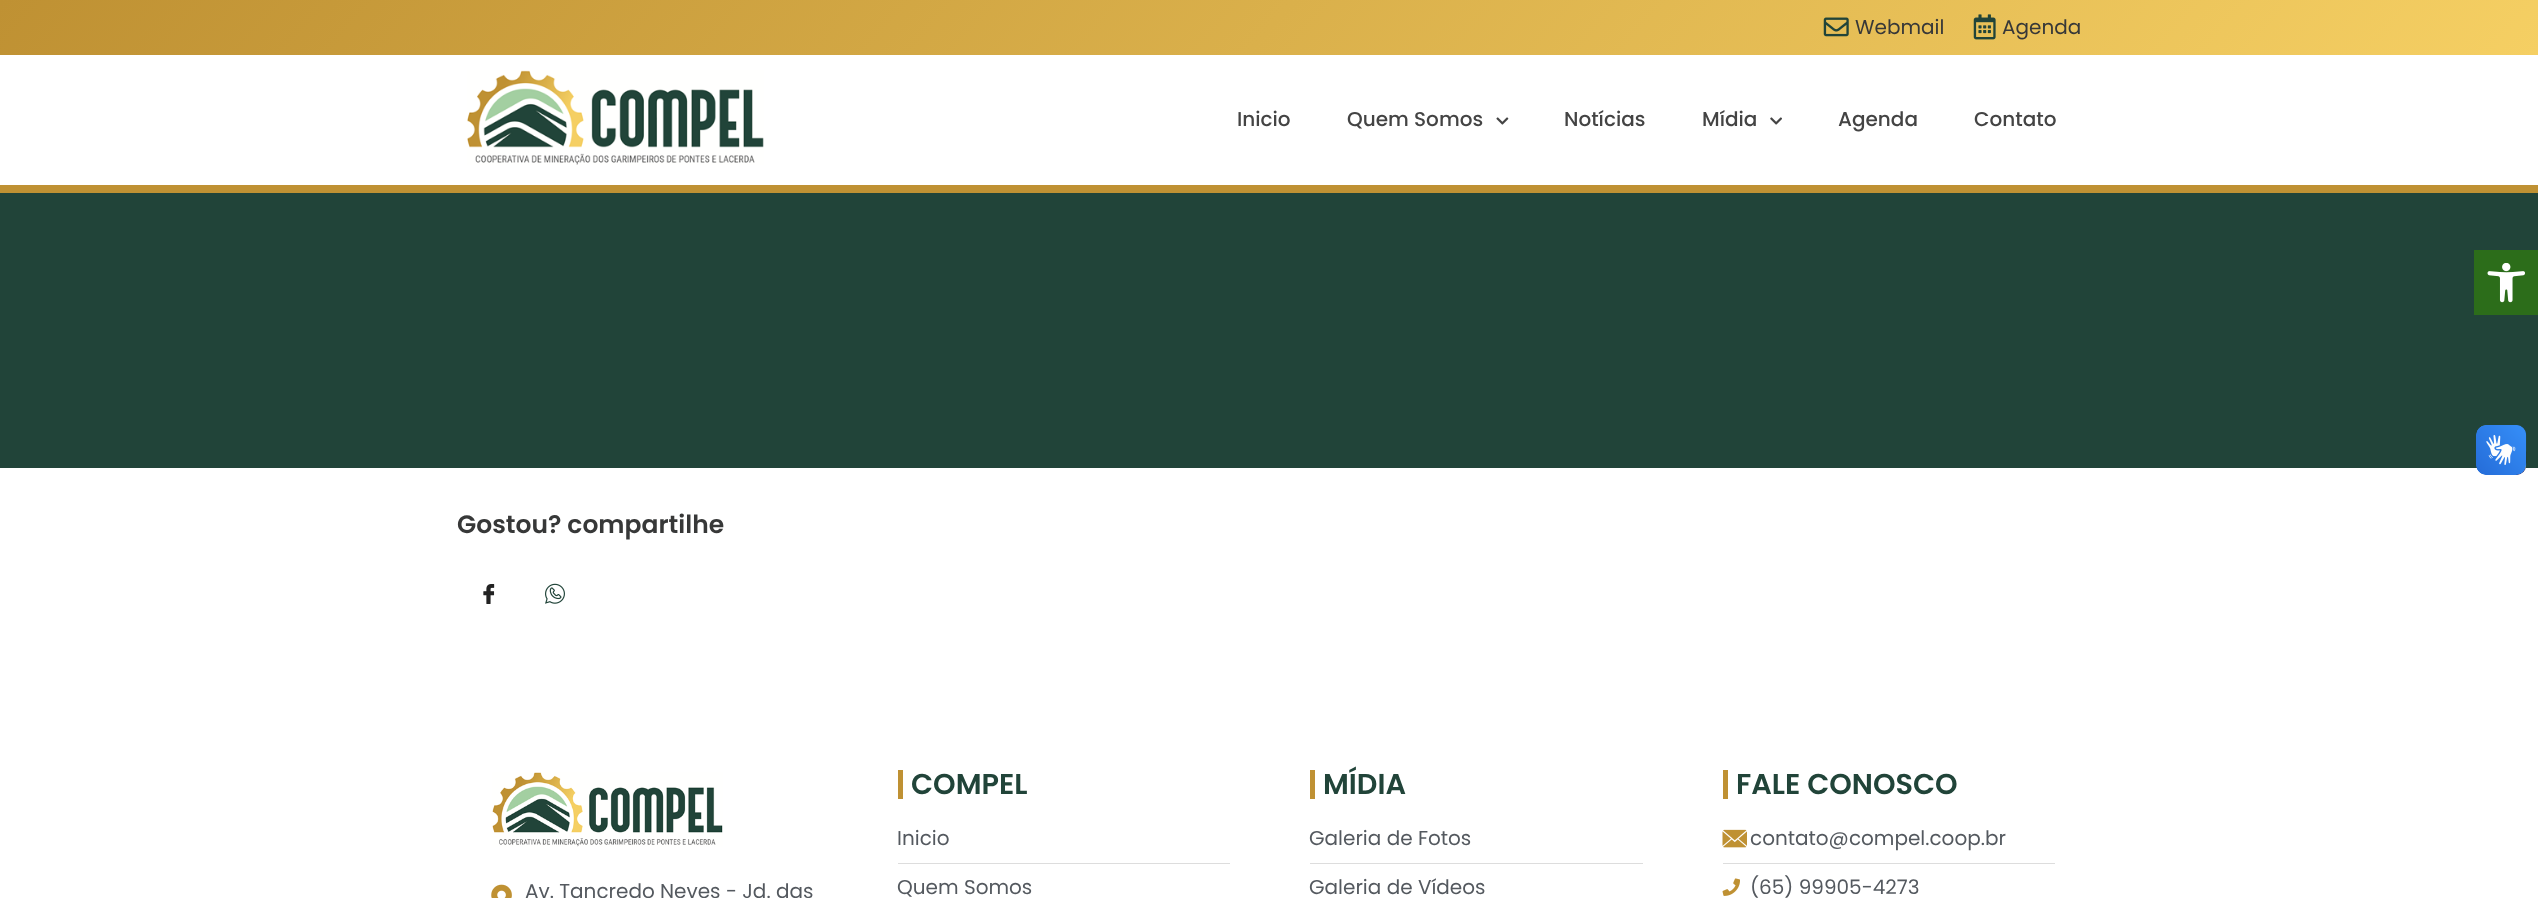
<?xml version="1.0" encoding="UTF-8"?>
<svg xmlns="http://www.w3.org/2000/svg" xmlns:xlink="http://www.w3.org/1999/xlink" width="2538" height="898">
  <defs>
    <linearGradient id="g1" gradientUnits="userSpaceOnUse" x1="511" y1="-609" x2="2028" y2="664"><stop offset="0" stop-color="#bf9133" /><stop offset="1" stop-color="#f5cf63" /></linearGradient>
  </defs>
  <rect width="100%" height="100%" fill="#ffffff" />
  <rect width="2538" height="55" fill="url(#g1)" />
  <image x="1823" y="17" width="26" height="20" xlink:href="image1.png" />
  <image x="1973" y="14" width="23" height="26" xlink:href="image2.png" />
  <rect y="185" width="2538" height="8" fill="#bf9133" />
  <image x="467" y="70" width="297" height="95" xlink:href="image3.png" />
  <image x="1496" y="117" width="13" height="8" xlink:href="image4.png" />
  <image x="1770" y="117" width="12" height="8" xlink:href="image5.png" />
  <rect y="193" width="2538" height="275" fill="#214439" />
  <rect x="2474" y="250" width="64" height="65" fill="#2c6d1a" />
  <image x="2487" y="263" width="38" height="40" xlink:href="image6.png" />
  <image x="483" y="584" width="12" height="20" xlink:href="image7.png" />
  <image x="545" y="583" width="20" height="21" xlink:href="image8.png" />
  <image x="2476" y="425" width="51" height="50" xlink:href="image9.png" />
  <image x="2476" y="425" width="50" height="50" xlink:href="image10.png" />
  <image x="492" y="772" width="231" height="75" xlink:href="image11.png" />
  <image x="491" y="884" width="21" height="14" xlink:href="image12.png" />
  <rect x="898" y="770" width="5" height="29" fill="#bf9133" />
  <rect x="898" y="863" width="332" height="1" fill="#dddddd" />
  <rect x="1310" y="770" width="5" height="29" fill="#bf9133" />
  <rect x="1310" y="863" width="333" height="1" fill="#dddddd" />
  <rect x="1723" y="770" width="5" height="29" fill="#bf9133" />
  <image x="1722" y="829" width="25" height="19" xlink:href="image13.png" />
  <rect x="1723" y="863" width="332" height="1" fill="#dddddd" />
  <image x="1722" y="878" width="18" height="18" xlink:href="image14.png" />
  <text x="1855" y="34" style="font-family: Poppins; font-size: 20px; fill: #373838">Webmail</text>
  <text x="2002" y="34" style="font-family: Poppins; font-size: 20px; fill: #373838">Agenda</text>
  <text x="1237" y="126" style="font-family: Poppins; font-size: 20px; font-weight: 500; fill: #444444">Inicio</text>
  <text x="1347" y="126" style="font-family: Poppins; font-size: 20px; font-weight: 500; fill: #444444">Quem Somos</text>
  <text x="1564" y="126" style="font-family: Poppins; font-size: 20px; font-weight: 500; fill: #444444">Notícias</text>
  <text x="1702" y="126" style="font-family: Poppins; font-size: 20px; font-weight: 500; fill: #444444">Mídia</text>
  <text x="1838" y="126" style="font-family: Poppins; font-size: 20px; font-weight: 500; fill: #444444">Agenda</text>
  <text x="1974" y="126" style="font-family: Poppins; font-size: 20px; font-weight: 500; fill: #444444">Contato</text>
  <text x="457" y="533" style="font-family: Poppins; font-size: 25px; font-weight: 600; fill: #373838">Gostou? compartilhe</text>
  <text x="525" y="898" style="font-family: Poppins; font-size: 20px; fill: #54595f">Av. Tancredo Neves - Jd. das</text>
  <text x="911" y="794" style="font-family: Poppins; font-size: 28.75px; font-weight: 600; fill: #214439">COMPEL</text>
  <text x="897" y="845" style="font-family: Poppins; font-size: 20px; fill: #54595f">Inicio</text>
  <text x="897" y="894" style="font-family: Poppins; font-size: 20px; fill: #54595f">Quem Somos</text>
  <text x="1323" y="794" style="font-family: Poppins; font-size: 28.75px; font-weight: 600; fill: #214439">MÍDIA</text>
  <text x="1309" y="845" style="font-family: Poppins; font-size: 20px; fill: #54595f">Galeria de Fotos</text>
  <text x="1309" y="894" style="font-family: Poppins; font-size: 20px; fill: #54595f">Galeria de Vídeos</text>
  <text x="1736" y="794" style="font-family: Poppins; font-size: 28.75px; font-weight: 600; fill: #214439">FALE CONOSCO</text>
  <text x="1750" y="845" style="font-family: Poppins; font-size: 20px; fill: #54595f">contato@compel.coop.br</text>
  <text x="1750" y="894" style="font-family: Poppins; font-size: 20px; fill: #54595f">(65) 99905-4273</text>
</svg>
